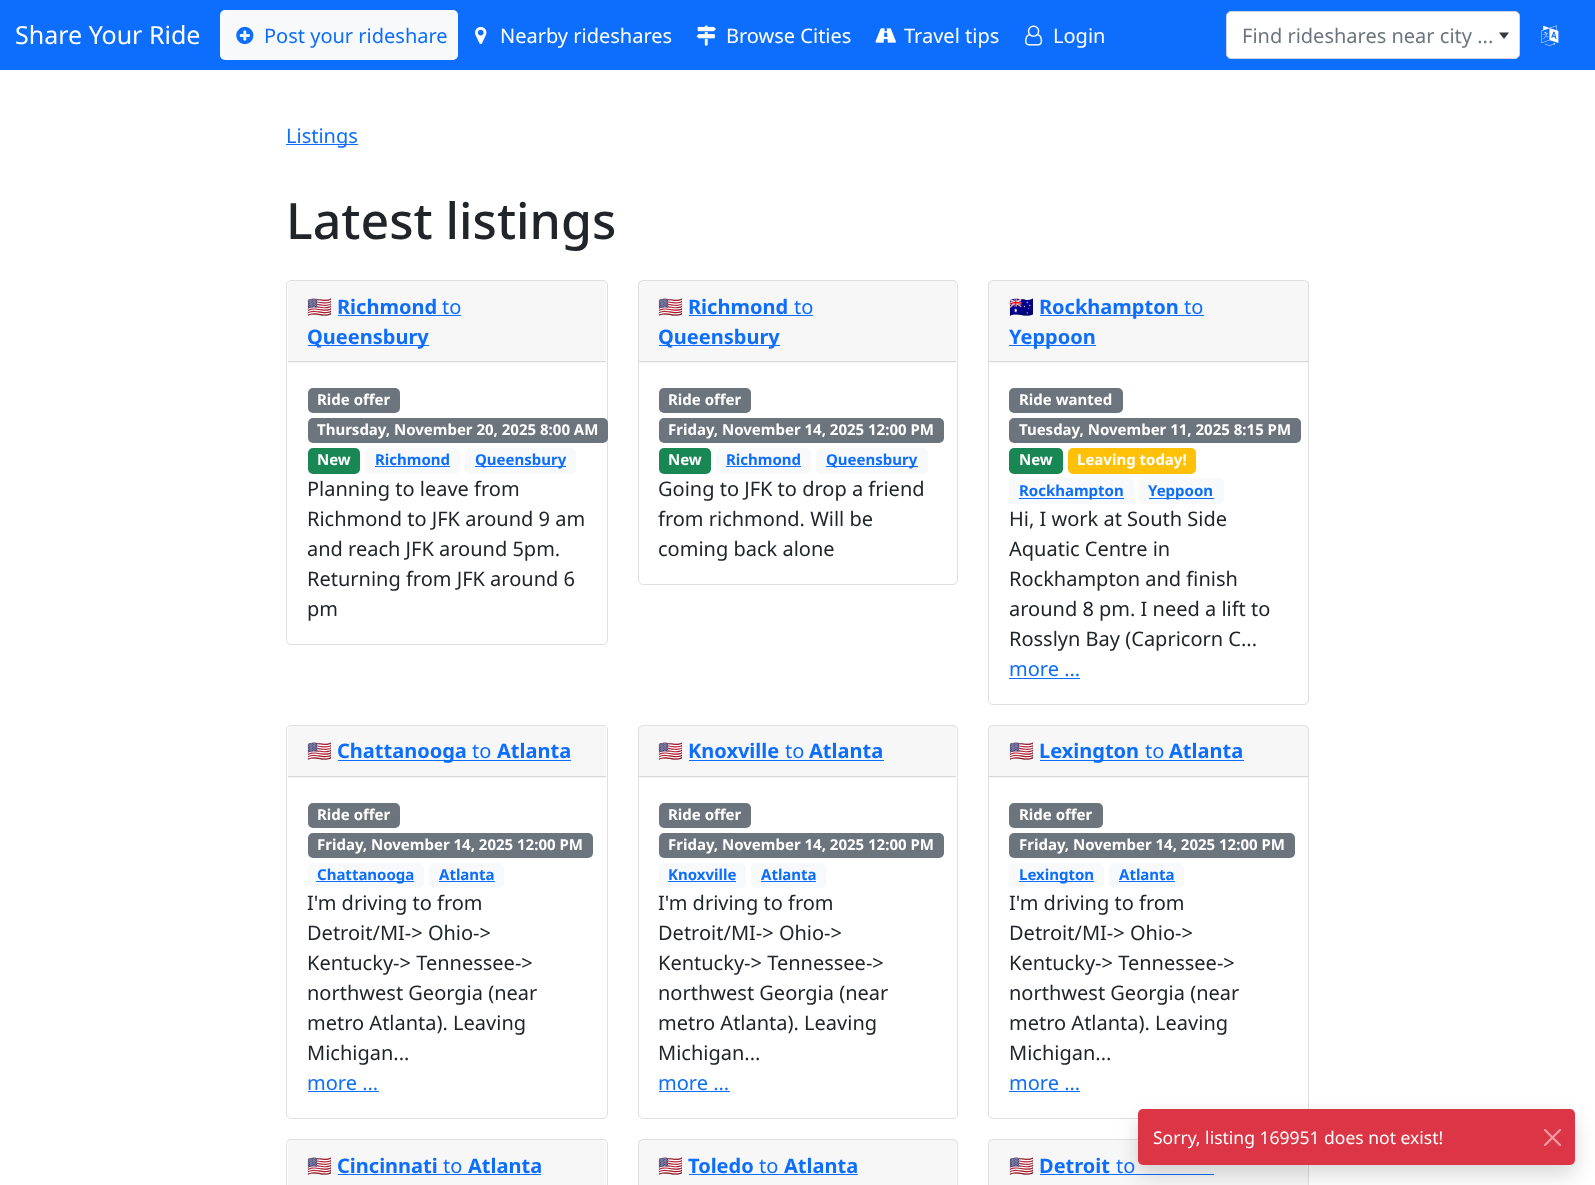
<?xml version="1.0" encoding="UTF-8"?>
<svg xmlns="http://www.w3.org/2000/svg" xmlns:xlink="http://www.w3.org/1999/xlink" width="1595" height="1185">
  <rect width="100%" height="100%" fill="#ffffff" />
  <rect width="1595" height="70" fill="#0d6efd" />
  <rect x="220" y="10" width="238" height="50" rx="5" fill="#f8f9fa" />
  <image x="236" y="26" width="18" height="19" xlink:href="image1.png" />
  <image x="475" y="26" width="12" height="18" xlink:href="image2.png" />
  <image x="696" y="25" width="20" height="21" xlink:href="image3.png" />
  <image x="875" y="28" width="21" height="15" xlink:href="image4.png" />
  <image x="1025" y="25" width="18" height="21" xlink:href="image5.png" />
  <rect x="1226.5" y="11.5" width="293" height="47" rx="4.5" fill="#ffffff" stroke="#ced4da" />
  <path d="M 1499 32.5 h 10 l -5 6.5 z" fill="#343a40" />
  <image x="1541" y="25" width="18" height="21" xlink:href="image6.png" />
  <rect x="286" y="144" width="72" height="1" fill="#0d6efd" />
  <rect x="286.5" y="280.5" width="321" height="364" rx="4.5" fill="none" stroke="#dfdfdf" />
  <path d="M 292 281 h 310 c 2 0 4 2 4 4 v 78 h -318 v -78 c 0 -2 2 -4 4 -4 z" fill="#f7f7f7" />
  <rect x="288" y="361" width="318" height="1" fill="#d8d8d8" />
  <rect x="338" y="315" width="123" height="1" fill="#0d6efd" />
  <rect x="308" y="345" width="121" height="1" fill="#0d6efd" />
  <rect x="308" y="388" width="92" height="25" rx="5" fill="#6c757d" />
  <rect x="308" y="418" width="300" height="25" rx="5" fill="#6c757d" />
  <rect x="308" y="448" width="52" height="26" rx="5" fill="#198754" />
  <rect x="365" y="448" width="95" height="26" rx="5" fill="#f8f9fa" />
  <rect x="375" y="466" width="75" height="1" fill="#0d6efd" />
  <rect x="465" y="448" width="111" height="26" rx="5" fill="#f8f9fa" />
  <rect x="475" y="466" width="91" height="1" fill="#0d6efd" />
  <rect x="638.5" y="280.5" width="319" height="304" rx="4.5" fill="none" stroke="#dfdfdf" />
  <rect x="639" y="281" width="317" height="82" fill="#000000" fill-opacity="0.03" />
  <rect x="639" y="361" width="317" height="1" fill="#d8d8d8" />
  <rect x="689" y="315" width="124" height="1" fill="#0d6efd" />
  <rect x="659" y="345" width="121" height="1" fill="#0d6efd" />
  <rect x="659" y="388" width="92" height="25" rx="5" fill="#6c757d" />
  <rect x="659" y="418" width="285" height="25" rx="5" fill="#6c757d" />
  <rect x="659" y="448" width="52" height="26" rx="5" fill="#198754" />
  <rect x="716" y="448" width="95" height="26" rx="5" fill="#f8f9fa" />
  <rect x="726" y="466" width="75" height="1" fill="#0d6efd" />
  <rect x="816" y="448" width="112" height="26" rx="5" fill="#f8f9fa" />
  <rect x="826" y="466" width="92" height="1" fill="#0d6efd" />
  <rect x="988.5" y="280.5" width="320" height="424" rx="4.5" fill="none" stroke="#dfdfdf" />
  <rect x="989" y="281" width="319" height="82" fill="#000000" fill-opacity="0.03" />
  <rect x="989" y="361" width="319" height="1" fill="#d8d8d8" />
  <rect x="1040" y="315" width="164" height="1" fill="#0d6efd" />
  <rect x="1009" y="345" width="87" height="1" fill="#0d6efd" />
  <rect x="1009" y="388" width="114" height="25" rx="5" fill="#6c757d" />
  <rect x="1009" y="418" width="292" height="25" rx="5" fill="#6c757d" />
  <rect x="1009" y="448" width="54" height="26" rx="5" fill="#198754" />
  <rect x="1068" y="448" width="128" height="26" rx="5" fill="#ffc107" />
  <rect x="1009" y="478" width="125" height="26" rx="5" fill="#f8f9fa" />
  <rect x="1019" y="498" width="105" height="1" fill="#0d6efd" />
  <rect x="1139" y="478" width="85" height="26" rx="5" fill="#f8f9fa" />
  <rect x="1149" y="498" width="65" height="1" fill="#0d6efd" />
  <rect x="1009" y="678" width="71" height="1" fill="#0d6efd" />
  <rect x="286.5" y="725.5" width="321" height="393" rx="4.5" fill="none" stroke="#dfdfdf" />
  <path d="M 292 726 h 310 c 2 0 4 2 4 4 v 48 h -318 v -48 c 0 -2 2 -4 4 -4 z" fill="#f7f7f7" />
  <rect x="288" y="776" width="318" height="1" fill="#d8d8d8" />
  <rect x="338" y="760" width="233" height="1" fill="#0d6efd" />
  <rect x="308" y="803" width="92" height="25" rx="5" fill="#6c757d" />
  <rect x="308" y="833" width="285" height="25" rx="5" fill="#6c757d" />
  <rect x="308" y="863" width="116" height="25" rx="5" fill="#f8f9fa" />
  <rect x="316" y="881" width="98" height="1" fill="#0d6efd" />
  <rect x="429" y="863" width="75" height="25" rx="5" fill="#f8f9fa" />
  <rect x="439" y="881" width="56" height="1" fill="#0d6efd" />
  <rect x="308" y="1091" width="71" height="1" fill="#0d6efd" />
  <rect x="638.5" y="725.5" width="319" height="393" rx="4.5" fill="none" stroke="#dfdfdf" />
  <rect x="639" y="726" width="317" height="52" fill="#000000" fill-opacity="0.03" />
  <rect x="639" y="776" width="317" height="1" fill="#d8d8d8" />
  <rect x="689" y="760" width="195" height="1" fill="#0d6efd" />
  <rect x="659" y="803" width="92" height="25" rx="5" fill="#6c757d" />
  <rect x="659" y="833" width="285" height="25" rx="5" fill="#6c757d" />
  <rect x="659" y="863" width="87" height="25" rx="5" fill="#f8f9fa" />
  <rect x="668" y="881" width="68" height="1" fill="#0d6efd" />
  <rect x="751" y="863" width="75" height="25" rx="5" fill="#f8f9fa" />
  <rect x="761" y="881" width="55" height="1" fill="#0d6efd" />
  <rect x="659" y="1091" width="71" height="1" fill="#0d6efd" />
  <rect x="988.5" y="725.5" width="320" height="393" rx="4.5" fill="none" stroke="#dfdfdf" />
  <rect x="989" y="726" width="319" height="52" fill="#000000" fill-opacity="0.03" />
  <rect x="989" y="776" width="319" height="1" fill="#d8d8d8" />
  <rect x="1040" y="760" width="204" height="1" fill="#0d6efd" />
  <rect x="1009" y="803" width="94" height="25" rx="5" fill="#6c757d" />
  <rect x="1009" y="833" width="286" height="25" rx="5" fill="#6c757d" />
  <rect x="1009" y="863" width="95" height="25" rx="5" fill="#f8f9fa" />
  <rect x="1019" y="881" width="75" height="1" fill="#0d6efd" />
  <rect x="1109" y="863" width="75" height="25" rx="5" fill="#f8f9fa" />
  <rect x="1119" y="881" width="56" height="1" fill="#0d6efd" />
  <rect x="1009" y="1091" width="71" height="1" fill="#0d6efd" />
  <rect x="286.5" y="1139.5" width="321" height="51" rx="4.5" fill="none" stroke="#dfdfdf" />
  <path d="M 292 1140 h 310 c 2 0 4 2 4 4 v 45 h -318 v -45 c 0 -2 2 -4 4 -4 z" fill="#f7f7f7" />
  <rect x="338" y="1174" width="203" height="1" fill="#0d6efd" />
  <rect x="638.5" y="1139.5" width="319" height="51" rx="4.5" fill="none" stroke="#dfdfdf" />
  <rect x="639" y="1140" width="317" height="45" fill="#000000" fill-opacity="0.03" />
  <rect x="689" y="1174" width="169" height="1" fill="#0d6efd" />
  <rect x="988.5" y="1139.5" width="320" height="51" rx="4.5" fill="none" stroke="#dfdfdf" />
  <rect x="989" y="1140" width="319" height="45" fill="#000000" fill-opacity="0.03" />
  <rect x="1040" y="1174" width="174" height="1" fill="#0d6efd" />
  <rect x="1138" y="1119" width="437" height="56" rx="5" fill="#000000" fill-opacity="0.15" filter="blur(10px)" />
  <rect x="1138" y="1109" width="437" height="56" rx="5" fill="#dc3545" />
  <image x="1544" y="1129" width="17" height="17" xlink:href="image7.png" />
  <text x="15" y="44" style="font-family: Noto Sans; font-size: 25px; fill: #ffffff">Share Your Ride</text>
  <text x="264" y="43" style="font-family: Noto Sans; font-size: 20px; fill: #0d6efd">Post your rideshare</text>
  <text x="500" y="43" style="font-family: Noto Sans; font-size: 20px; fill: #ffffff">Nearby rideshares</text>
  <text x="726" y="43" style="font-family: Noto Sans; font-size: 20px; fill: #ffffff">Browse Cities</text>
  <text x="904" y="43" style="font-family: Noto Sans; font-size: 20px; fill: #ffffff">Travel tips</text>
  <text x="1053" y="43" style="font-family: Noto Sans; font-size: 20px; fill: #ffffff">Login</text>
  <text x="1242" y="43" style="font-family: Noto Sans; font-size: 20px; fill: #6c757d">Find rideshares near city ...</text>
  <text x="286" y="143" style="font-family: Noto Sans; font-size: 20px; fill: #0d6efd">Listings</text>
  <text x="286" y="239" style="font-family: Noto Sans; font-size: 50px; font-weight: 500; fill: #212529">Latest listings</text>
  <text x="307" y="314" style="font-family: Noto Color Emoji; font-size: 20px; fill: #212529">🇺🇸</text>
  <text x="337" y="314" style="font-family: Noto Sans; font-size: 20px; font-weight: bold; fill: #0d6efd">Richmond</text>
  <text x="442" y="314" style="font-family: Noto Sans; font-size: 20px; fill: #0d6efd">to</text>
  <text x="307" y="344" style="font-family: Noto Sans; font-size: 20px; font-weight: bold; fill: #0d6efd">Queensbury</text>
  <text x="317" y="405" style="font-family: Noto Sans; font-size: 15px; font-weight: bold; fill: #ffffff">Ride offer</text>
  <text x="317" y="435" style="font-family: Noto Sans; font-size: 15px; font-weight: bold; fill: #ffffff">Thursday, November 20, 2025 8:00 AM</text>
  <text x="317" y="465" style="font-family: Noto Sans; font-size: 15px; font-weight: bold; fill: #ffffff">New</text>
  <text x="375" y="465" style="font-family: Noto Sans; font-size: 15px; font-weight: bold; fill: #0d6efd">Richmond</text>
  <text x="475" y="465" style="font-family: Noto Sans; font-size: 15px; font-weight: bold; fill: #0d6efd">Queensbury</text>
  <text x="307" y="496" style="font-family: Noto Sans; font-size: 20px; fill: #212529">Planning to leave from</text>
  <text x="307" y="526" style="font-family: Noto Sans; font-size: 20px; fill: #212529">Richmond to JFK around 9 am</text>
  <text x="307" y="556" style="font-family: Noto Sans; font-size: 20px; fill: #212529">and reach JFK around 5pm.</text>
  <text x="307" y="586" style="font-family: Noto Sans; font-size: 20px; fill: #212529">Returning from JFK around 6</text>
  <text x="307" y="616" style="font-family: Noto Sans; font-size: 20px; fill: #212529">pm</text>
  <text x="658" y="314" style="font-family: Noto Color Emoji; font-size: 20px; fill: #212529">🇺🇸</text>
  <text x="688" y="314" style="font-family: Noto Sans; font-size: 20px; font-weight: bold; fill: #0d6efd">Richmond</text>
  <text x="794" y="314" style="font-family: Noto Sans; font-size: 20px; fill: #0d6efd">to</text>
  <text x="658" y="344" style="font-family: Noto Sans; font-size: 20px; font-weight: bold; fill: #0d6efd">Queensbury</text>
  <text x="668" y="405" style="font-family: Noto Sans; font-size: 15px; font-weight: bold; fill: #ffffff">Ride offer</text>
  <text x="668" y="435" style="font-family: Noto Sans; font-size: 15px; font-weight: bold; fill: #ffffff">Friday, November 14, 2025 12:00 PM</text>
  <text x="668" y="465" style="font-family: Noto Sans; font-size: 15px; font-weight: bold; fill: #ffffff">New</text>
  <text x="726" y="465" style="font-family: Noto Sans; font-size: 15px; font-weight: bold; fill: #0d6efd">Richmond</text>
  <text x="826" y="465" style="font-family: Noto Sans; font-size: 15px; font-weight: bold; fill: #0d6efd">Queensbury</text>
  <text x="658" y="496" style="font-family: Noto Sans; font-size: 20px; fill: #212529">Going to JFK to drop a friend</text>
  <text x="658" y="526" style="font-family: Noto Sans; font-size: 20px; fill: #212529">from richmond. Will be</text>
  <text x="658" y="556" style="font-family: Noto Sans; font-size: 20px; fill: #212529">coming back alone</text>
  <text x="1009" y="314" style="font-family: Noto Color Emoji; font-size: 20px; fill: #212529">🇦🇺</text>
  <text x="1039" y="314" style="font-family: Noto Sans; font-size: 20px; font-weight: bold; fill: #0d6efd">Rockhampton</text>
  <text x="1184" y="314" style="font-family: Noto Sans; font-size: 20px; fill: #0d6efd">to</text>
  <text x="1009" y="344" style="font-family: Noto Sans; font-size: 20px; font-weight: bold; fill: #0d6efd">Yeppoon</text>
  <text x="1019" y="405" style="font-family: Noto Sans; font-size: 15px; font-weight: bold; fill: #ffffff">Ride wanted</text>
  <text x="1019" y="435" style="font-family: Noto Sans; font-size: 15px; font-weight: bold; fill: #ffffff">Tuesday, November 11, 2025 8:15 PM</text>
  <text x="1019" y="465" style="font-family: Noto Sans; font-size: 15px; font-weight: bold; fill: #ffffff">New</text>
  <text x="1077" y="465" style="font-family: Noto Sans; font-size: 15px; font-weight: bold; fill: #ffffff">Leaving today!</text>
  <text x="1019" y="496" style="font-family: Noto Sans; font-size: 15px; font-weight: bold; fill: #0d6efd">Rockhampton</text>
  <text x="1148" y="496" style="font-family: Noto Sans; font-size: 15px; font-weight: bold; fill: #0d6efd">Yeppoon</text>
  <text x="1009" y="526" style="font-family: Noto Sans; font-size: 20px; fill: #212529">Hi, I work at South Side</text>
  <text x="1009" y="556" style="font-family: Noto Sans; font-size: 20px; fill: #212529">Aquatic Centre in</text>
  <text x="1009" y="586" style="font-family: Noto Sans; font-size: 20px; fill: #212529">Rockhampton and finish</text>
  <text x="1009" y="616" style="font-family: Noto Sans; font-size: 20px; fill: #212529">around 8 pm. I need a lift to</text>
  <text x="1009" y="646" style="font-family: Noto Sans; font-size: 20px; fill: #212529">Rosslyn Bay (Capricorn C...</text>
  <text x="1009" y="676" style="font-family: Noto Sans; font-size: 20px; fill: #0d6efd">more ...</text>
  <text x="307" y="758" style="font-family: Noto Color Emoji; font-size: 20px; fill: #212529">🇺🇸</text>
  <text x="337" y="758" style="font-family: Noto Sans; font-size: 20px; font-weight: bold; fill: #0d6efd">Chattanooga</text>
  <text x="472" y="758" style="font-family: Noto Sans; font-size: 20px; fill: #0d6efd">to</text>
  <text x="497" y="758" style="font-family: Noto Sans; font-size: 20px; font-weight: bold; fill: #0d6efd">Atlanta</text>
  <text x="317" y="820" style="font-family: Noto Sans; font-size: 15px; font-weight: bold; fill: #ffffff">Ride offer</text>
  <text x="317" y="850" style="font-family: Noto Sans; font-size: 15px; font-weight: bold; fill: #ffffff">Friday, November 14, 2025 12:00 PM</text>
  <text x="317" y="880" style="font-family: Noto Sans; font-size: 15px; font-weight: bold; fill: #0d6efd">Chattanooga</text>
  <text x="439" y="880" style="font-family: Noto Sans; font-size: 15px; font-weight: bold; fill: #0d6efd">Atlanta</text>
  <text x="307" y="910" style="font-family: Noto Sans; font-size: 20px; fill: #212529">I'm driving to from</text>
  <text x="307" y="940" style="font-family: Noto Sans; font-size: 20px; fill: #212529">Detroit/MI-&gt; Ohio-&gt;</text>
  <text x="307" y="970" style="font-family: Noto Sans; font-size: 20px; fill: #212529">Kentucky-&gt; Tennessee-&gt;</text>
  <text x="307" y="1000" style="font-family: Noto Sans; font-size: 20px; fill: #212529">northwest Georgia (near</text>
  <text x="307" y="1030" style="font-family: Noto Sans; font-size: 20px; fill: #212529">metro Atlanta). Leaving</text>
  <text x="307" y="1060" style="font-family: Noto Sans; font-size: 20px; fill: #212529">Michigan...</text>
  <text x="307" y="1090" style="font-family: Noto Sans; font-size: 20px; fill: #0d6efd">more ...</text>
  <text x="658" y="758" style="font-family: Noto Color Emoji; font-size: 20px; fill: #212529">🇺🇸</text>
  <text x="688" y="758" style="font-family: Noto Sans; font-size: 20px; font-weight: bold; fill: #0d6efd">Knoxville</text>
  <text x="785" y="758" style="font-family: Noto Sans; font-size: 20px; fill: #0d6efd">to</text>
  <text x="809" y="758" style="font-family: Noto Sans; font-size: 20px; font-weight: bold; fill: #0d6efd">Atlanta</text>
  <text x="668" y="820" style="font-family: Noto Sans; font-size: 15px; font-weight: bold; fill: #ffffff">Ride offer</text>
  <text x="668" y="850" style="font-family: Noto Sans; font-size: 15px; font-weight: bold; fill: #ffffff">Friday, November 14, 2025 12:00 PM</text>
  <text x="668" y="880" style="font-family: Noto Sans; font-size: 15px; font-weight: bold; fill: #0d6efd">Knoxville</text>
  <text x="761" y="880" style="font-family: Noto Sans; font-size: 15px; font-weight: bold; fill: #0d6efd">Atlanta</text>
  <text x="658" y="910" style="font-family: Noto Sans; font-size: 20px; fill: #212529">I'm driving to from</text>
  <text x="658" y="940" style="font-family: Noto Sans; font-size: 20px; fill: #212529">Detroit/MI-&gt; Ohio-&gt;</text>
  <text x="658" y="970" style="font-family: Noto Sans; font-size: 20px; fill: #212529">Kentucky-&gt; Tennessee-&gt;</text>
  <text x="658" y="1000" style="font-family: Noto Sans; font-size: 20px; fill: #212529">northwest Georgia (near</text>
  <text x="658" y="1030" style="font-family: Noto Sans; font-size: 20px; fill: #212529">metro Atlanta). Leaving</text>
  <text x="658" y="1060" style="font-family: Noto Sans; font-size: 20px; fill: #212529">Michigan...</text>
  <text x="658" y="1090" style="font-family: Noto Sans; font-size: 20px; fill: #0d6efd">more ...</text>
  <text x="1009" y="758" style="font-family: Noto Color Emoji; font-size: 20px; fill: #212529">🇺🇸</text>
  <text x="1039" y="758" style="font-family: Noto Sans; font-size: 20px; font-weight: bold; fill: #0d6efd">Lexington</text>
  <text x="1145" y="758" style="font-family: Noto Sans; font-size: 20px; fill: #0d6efd">to</text>
  <text x="1169" y="758" style="font-family: Noto Sans; font-size: 20px; font-weight: bold; fill: #0d6efd">Atlanta</text>
  <text x="1019" y="820" style="font-family: Noto Sans; font-size: 15px; font-weight: bold; fill: #ffffff">Ride offer</text>
  <text x="1019" y="850" style="font-family: Noto Sans; font-size: 15px; font-weight: bold; fill: #ffffff">Friday, November 14, 2025 12:00 PM</text>
  <text x="1019" y="880" style="font-family: Noto Sans; font-size: 15px; font-weight: bold; fill: #0d6efd">Lexington</text>
  <text x="1119" y="880" style="font-family: Noto Sans; font-size: 15px; font-weight: bold; fill: #0d6efd">Atlanta</text>
  <text x="1009" y="910" style="font-family: Noto Sans; font-size: 20px; fill: #212529">I'm driving to from</text>
  <text x="1009" y="940" style="font-family: Noto Sans; font-size: 20px; fill: #212529">Detroit/MI-&gt; Ohio-&gt;</text>
  <text x="1009" y="970" style="font-family: Noto Sans; font-size: 20px; fill: #212529">Kentucky-&gt; Tennessee-&gt;</text>
  <text x="1009" y="1000" style="font-family: Noto Sans; font-size: 20px; fill: #212529">northwest Georgia (near</text>
  <text x="1009" y="1030" style="font-family: Noto Sans; font-size: 20px; fill: #212529">metro Atlanta). Leaving</text>
  <text x="1009" y="1060" style="font-family: Noto Sans; font-size: 20px; fill: #212529">Michigan...</text>
  <text x="1009" y="1090" style="font-family: Noto Sans; font-size: 20px; fill: #0d6efd">more ...</text>
  <text x="307" y="1173" style="font-family: Noto Color Emoji; font-size: 20px; fill: #212529">🇺🇸</text>
  <text x="337" y="1173" style="font-family: Noto Sans; font-size: 20px; font-weight: bold; fill: #0d6efd">Cincinnati</text>
  <text x="443" y="1173" style="font-family: Noto Sans; font-size: 20px; fill: #0d6efd">to</text>
  <text x="468" y="1173" style="font-family: Noto Sans; font-size: 20px; font-weight: bold; fill: #0d6efd">Atlanta</text>
  <text x="658" y="1173" style="font-family: Noto Color Emoji; font-size: 20px; fill: #212529">🇺🇸</text>
  <text x="688" y="1173" style="font-family: Noto Sans; font-size: 20px; font-weight: bold; fill: #0d6efd">Toledo</text>
  <text x="759" y="1173" style="font-family: Noto Sans; font-size: 20px; fill: #0d6efd">to</text>
  <text x="784" y="1173" style="font-family: Noto Sans; font-size: 20px; font-weight: bold; fill: #0d6efd">Atlanta</text>
  <text x="1009" y="1173" style="font-family: Noto Color Emoji; font-size: 20px; fill: #212529">🇺🇸</text>
  <text x="1039" y="1173" style="font-family: Noto Sans; font-size: 20px; font-weight: bold; fill: #0d6efd">Detroit</text>
  <text x="1116" y="1173" style="font-family: Noto Sans; font-size: 20px; fill: #0d6efd">to</text>
  <text x="1153" y="1144" style="font-family: Noto Sans; font-size: 17.5px; fill: #ffffff">Sorry, listing 169951 does not exist!</text>
</svg>
